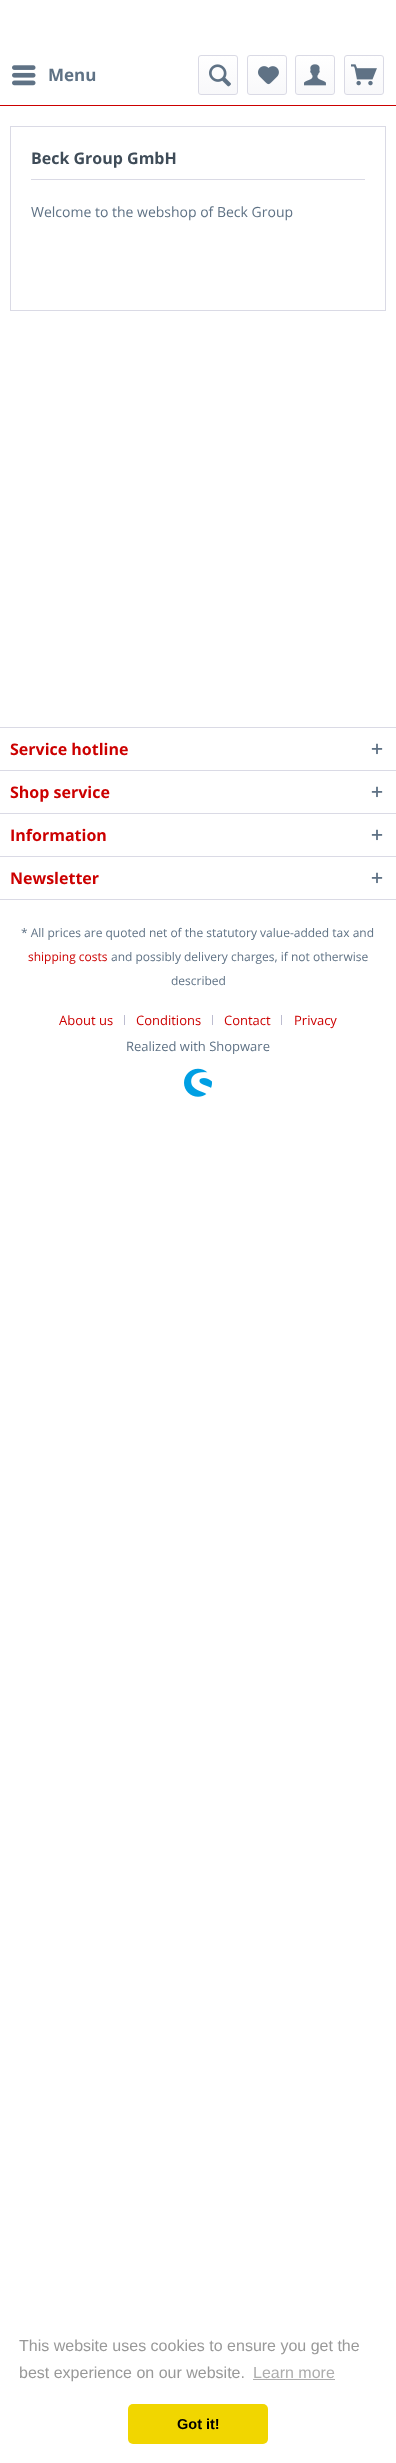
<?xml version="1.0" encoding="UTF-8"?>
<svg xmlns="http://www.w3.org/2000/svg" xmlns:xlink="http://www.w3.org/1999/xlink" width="396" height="2463">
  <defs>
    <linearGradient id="g1" gradientUnits="userSpaceOnUse" x1="218" y1="56" x2="218" y2="94"><stop offset="0" stop-color="#ffffff" /><stop offset="1" stop-color="#f8f8fa" /></linearGradient>
    <linearGradient id="g2" gradientUnits="userSpaceOnUse" x1="267" y1="56" x2="267" y2="94"><stop offset="0" stop-color="#ffffff" /><stop offset="1" stop-color="#f8f8fa" /></linearGradient>
    <linearGradient id="g3" gradientUnits="userSpaceOnUse" x1="315" y1="56" x2="315" y2="94"><stop offset="0" stop-color="#ffffff" /><stop offset="1" stop-color="#f8f8fa" /></linearGradient>
    <linearGradient id="g4" gradientUnits="userSpaceOnUse" x1="364" y1="56" x2="364" y2="94"><stop offset="0" stop-color="#ffffff" /><stop offset="1" stop-color="#f8f8fa" /></linearGradient>
  </defs>
  <rect width="100%" height="100%" fill="#ffffff" />
  <rect y="105" width="396" height="1" fill="#cc0000" />
  <image x="12" y="65" width="24" height="21" xlink:href="image1.png" />
  <rect x="199" y="56" width="38" height="38" rx="2" fill="url(#g1)" />
  <rect x="198.5" y="55.5" width="39" height="39" rx="2.5" fill="none" stroke="#dadae5" />
  <image x="209" y="64" width="22" height="23" xlink:href="image2.png" />
  <rect x="248" y="56" width="38" height="38" rx="2" fill="url(#g2)" />
  <rect x="247.5" y="55.5" width="39" height="39" rx="2.5" fill="none" stroke="#dadae5" />
  <image x="258" y="66" width="21" height="19" xlink:href="image3.png" />
  <rect x="296" y="56" width="38" height="38" rx="2" fill="url(#g3)" />
  <rect x="295.5" y="55.5" width="39" height="39" rx="2.5" fill="none" stroke="#dadae5" />
  <image x="304" y="64" width="22" height="22" xlink:href="image4.png" />
  <rect x="345" y="56" width="38" height="38" rx="2" fill="url(#g4)" />
  <rect x="344.5" y="55.5" width="39" height="39" rx="2.5" fill="none" stroke="#dadae5" />
  <image x="351" y="64" width="26" height="22" xlink:href="image5.png" />
  <rect x="10.5" y="126.5" width="375" height="184" fill="none" stroke="#dadae5" />
  <rect x="31" y="179" width="334" height="1" fill="#dadae5" />
  <rect y="727" width="396" height="1" fill="#dadae5" />
  <image x="371" y="743" width="12" height="12" xlink:href="image6.png" />
  <rect y="770" width="396" height="1" fill="#dadae5" />
  <image x="371" y="786" width="12" height="12" xlink:href="image6.png" />
  <rect y="813" width="396" height="1" fill="#dadae5" />
  <image x="371" y="829" width="12" height="12" xlink:href="image6.png" />
  <rect y="856" width="396" height="1" fill="#dadae5" />
  <rect y="899" width="396" height="1" fill="#dadae5" />
  <image x="371" y="872" width="12" height="12" xlink:href="image6.png" />
  <rect x="124" y="1015" width="1" height="10" fill="#bcbcd0" />
  <rect x="212" y="1015" width="1" height="10" fill="#bcbcd0" />
  <rect x="281" y="1015" width="1" height="10" fill="#bcbcd0" />
  <image x="184" y="1068" width="28" height="29" xlink:href="image7.png" />
  <rect x="253" y="2379" width="82" height="1" fill="#adadad" />
  <rect x="128" y="2404" width="140" height="40" rx="5" fill="#f1d600" />
  <text x="48" y="81" style="font-family: Open Sans; font-size: 17px; font-weight: bold; fill: #5f7285">Menu</text>
  <text x="31" y="164" style="font-family: Open Sans; font-size: 16px; font-weight: bold; fill: #3f4c58">Beck Group GmbH</text>
  <text x="31" y="217" style="font-family: Open Sans; font-size: 14px; fill: #5f7285">Welcome to the webshop of Beck Group</text>
  <text x="10" y="755" style="font-family: Open Sans; font-size: 16px; font-weight: bold; fill: #cc0000">Service hotline</text>
  <text x="10" y="798" style="font-family: Open Sans; font-size: 16px; font-weight: bold; fill: #cc0000">Shop service</text>
  <text x="10" y="841" style="font-family: Open Sans; font-size: 16px; font-weight: bold; fill: #cc0000">Information</text>
  <text x="10" y="884" style="font-family: Open Sans; font-size: 16px; font-weight: bold; fill: #cc0000">Newsletter</text>
  <text x="21" y="937" style="font-family: Open Sans; font-size: 12px; fill: #5f7285">* All prices are quoted net of the statutory value-added tax and</text>
  <text x="28" y="961" style="font-family: Open Sans; font-size: 12px; fill: #cc0000">shipping costs</text>
  <text x="111" y="961" style="font-family: Open Sans; font-size: 12px; fill: #5f7285">and possibly delivery charges, if not otherwise</text>
  <text x="171" y="985" style="font-family: Open Sans; font-size: 12px; fill: #5f7285">described</text>
  <text x="59" y="1025" style="font-family: Open Sans; font-size: 13px; fill: #cc0000">About us</text>
  <text x="136" y="1025" style="font-family: Open Sans; font-size: 13px; fill: #cc0000">Conditions</text>
  <text x="224" y="1025" style="font-family: Open Sans; font-size: 13px; fill: #cc0000">Contact</text>
  <text x="294" y="1025" style="font-family: Open Sans; font-size: 13px; fill: #cc0000">Privacy</text>
  <text x="126" y="1051" style="font-family: Open Sans; font-size: 13px; fill: #5f7285">Realized with Shopware</text>
  <text x="19" y="2351" style="font-family: Liberation Sans; font-size: 16px; fill: #999999">This website uses cookies to ensure you get the</text>
  <text x="19" y="2378" style="font-family: Liberation Sans; font-size: 16px; fill: #999999">best experience on our website.</text>
  <text x="253" y="2378" style="font-family: Liberation Sans; font-size: 16px; fill: #adadad">Learn more</text>
  <text x="177" y="2429" style="font-family: Liberation Sans; font-size: 14.5px; font-weight: bold; fill: #000000">Got it!</text>
</svg>
